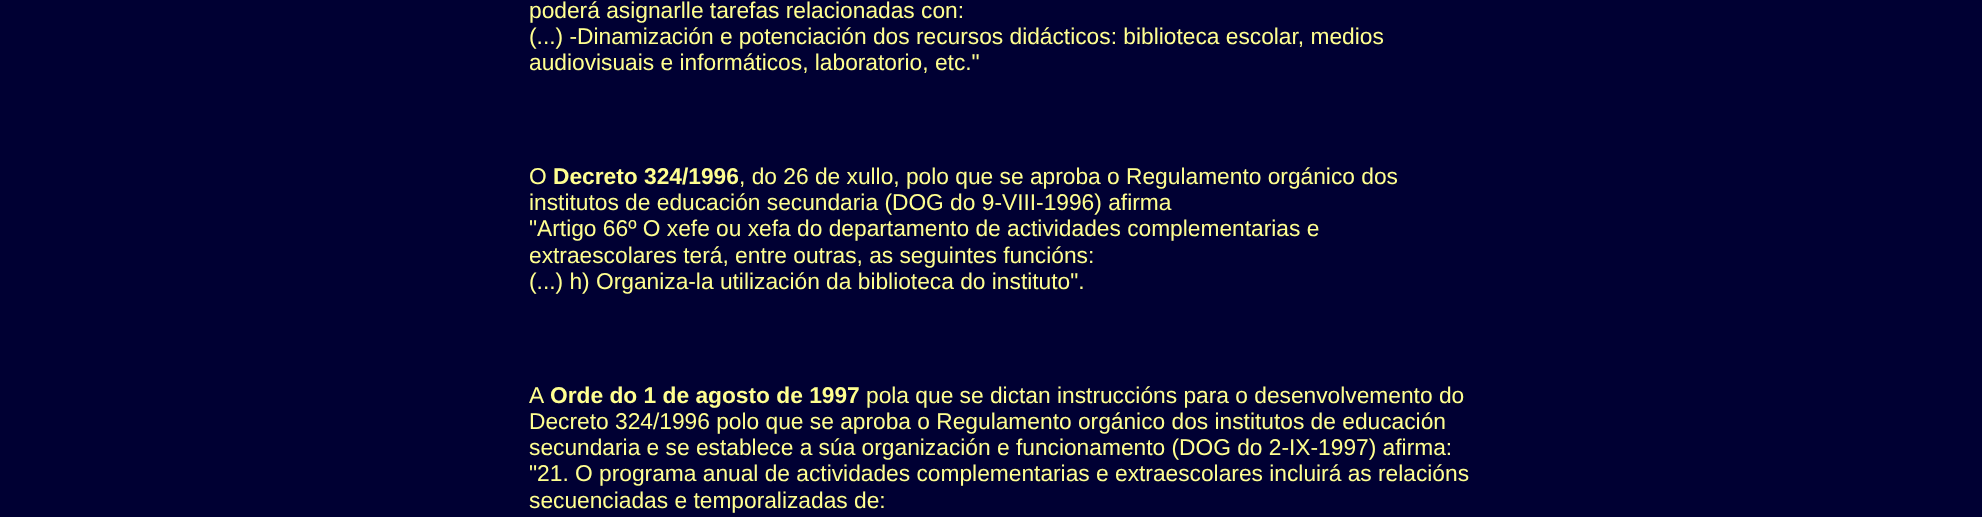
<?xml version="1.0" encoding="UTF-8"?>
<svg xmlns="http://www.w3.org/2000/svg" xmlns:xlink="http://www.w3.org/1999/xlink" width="1982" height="517">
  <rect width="100%" height="100%" fill="#000033" />
  <text x="529" y="18" style="font-family: Liberation Sans; font-size: 22.75px; fill: #ffff90">poderá asignarlle tarefas relacionadas con:</text>
  <text x="529" y="44" style="font-family: Liberation Sans; font-size: 22.75px; fill: #ffff90">(...) -Dinamización e potenciación dos recursos didácticos: biblioteca escolar, medios</text>
  <text x="529" y="70" style="font-family: Liberation Sans; font-size: 22.75px; fill: #ffff90">audiovisuais e informáticos, laboratorio, etc."</text>
  <text x="529" y="184" style="font-family: Liberation Sans; font-size: 22.75px; fill: #ffff90">O</text>
  <text x="553" y="184" style="font-family: Liberation Sans; font-size: 22.75px; font-weight: bold; fill: #ffff90">Decreto 324/1996</text>
  <text x="739" y="184" style="font-family: Liberation Sans; font-size: 22.75px; fill: #ffff90">, do 26 de xullo, polo que se aproba o Regulamento orgánico dos</text>
  <text x="529" y="210" style="font-family: Liberation Sans; font-size: 22.75px; fill: #ffff90">institutos de educación secundaria (DOG do 9-VIII-1996) afirma</text>
  <text x="529" y="236" style="font-family: Liberation Sans; font-size: 22.75px; fill: #ffff90">"Artigo 66º O xefe ou xefa do departamento de actividades complementarias e</text>
  <text x="529" y="263" style="font-family: Liberation Sans; font-size: 22.75px; fill: #ffff90">extraescolares terá, entre outras, as seguintes funcións:</text>
  <text x="529" y="289" style="font-family: Liberation Sans; font-size: 22.75px; fill: #ffff90">(...) h) Organiza-la utilización da biblioteca do instituto".</text>
  <text x="529" y="403" style="font-family: Liberation Sans; font-size: 22.75px; fill: #ffff90">A</text>
  <text x="550" y="403" style="font-family: Liberation Sans; font-size: 22.75px; font-weight: bold; fill: #ffff90">Orde do 1 de agosto de 1997</text>
  <text x="866" y="403" style="font-family: Liberation Sans; font-size: 22.75px; fill: #ffff90">pola que se dictan instruccións para o desenvolvemento do</text>
  <text x="529" y="429" style="font-family: Liberation Sans; font-size: 22.75px; fill: #ffff90">Decreto 324/1996 polo que se aproba o Regulamento orgánico dos institutos de educación</text>
  <text x="529" y="455" style="font-family: Liberation Sans; font-size: 22.75px; fill: #ffff90">secundaria e se establece a súa organización e funcionamento (DOG do 2-IX-1997) afirma:</text>
  <text x="529" y="481" style="font-family: Liberation Sans; font-size: 22.75px; fill: #ffff90">"21. O programa anual de actividades complementarias e extraescolares incluirá as relacións</text>
  <text x="529" y="508" style="font-family: Liberation Sans; font-size: 22.75px; fill: #ffff90">secuenciadas e temporalizadas de:</text>
</svg>
